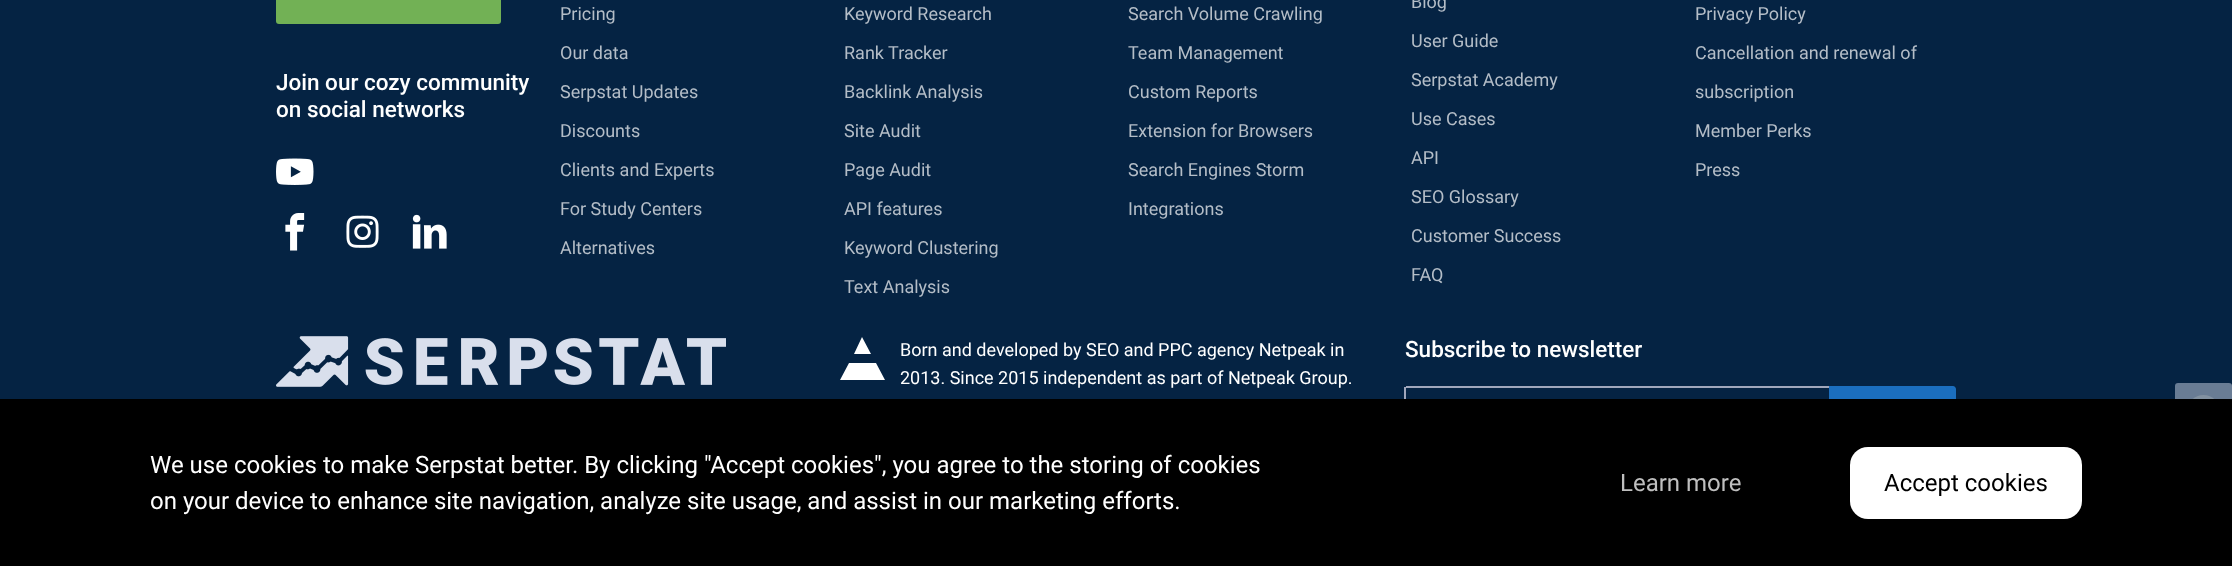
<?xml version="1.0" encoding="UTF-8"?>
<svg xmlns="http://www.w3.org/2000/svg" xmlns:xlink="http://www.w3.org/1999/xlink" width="2232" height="566">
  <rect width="100%" height="100%" fill="#052343" />
  <rect x="276" y="-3" width="225" height="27" rx="3" fill="#72b155" />
  <image x="276" y="158" width="38" height="27" xlink:href="image1.png" />
  <image x="285" y="213" width="20" height="38" xlink:href="image2.png" />
  <image x="346" y="215" width="33" height="33" xlink:href="image3.png" />
  <image x="412" y="214" width="35" height="35" xlink:href="image4.png" />
  <image x="276" y="336" width="450" height="51" xlink:href="image5.png" />
  <path d="M 871 354 l -9 -17 l -8 17 z m 5 9 h -27 l -9 17 h 45 z" fill="#ffffff" fill-rule="evenodd" />
  <rect x="1406" y="386" width="423" height="2" fill="#a1a7bc" />
  <rect x="1404" y="387" width="2" height="12" fill="#a1a7bc" />
  <path d="M 1829 386 h 124 c 1.5 0 3 1.5 3 3 v 48 c 0 1.5 -1.5 3 -3 3 h -124 z" fill="#1b6ebe" />
  <rect x="2175" y="383" width="57" height="57" rx="3" fill="#697c94" />
  <circle cx="2203.5" cy="411.5" r="16.5" fill="#8291a1" />
  <rect y="399" width="2232" height="167" fill="#000000" />
  <rect x="1850" y="447" width="232" height="72" rx="18" fill="#ffffff" />
  <text x="276" y="90" style="font-family: Roboto; font-size: 22.5px; font-weight: 500; fill: #ffffff">Join our cozy community</text>
  <text x="276" y="117" style="font-family: Roboto; font-size: 22.5px; font-weight: 500; fill: #ffffff">on social networks</text>
  <text x="560" y="20" style="font-family: Roboto; font-size: 18px; fill: #b4bdc7">Pricing</text>
  <text x="560" y="59" style="font-family: Roboto; font-size: 18px; fill: #b4bdc7">Our data</text>
  <text x="560" y="98" style="font-family: Roboto; font-size: 18px; fill: #b4bdc7">Serpstat Updates</text>
  <text x="560" y="137" style="font-family: Roboto; font-size: 18px; fill: #b4bdc7">Discounts</text>
  <text x="560" y="176" style="font-family: Roboto; font-size: 18px; fill: #b4bdc7">Clients and Experts</text>
  <text x="560" y="215" style="font-family: Roboto; font-size: 18px; fill: #b4bdc7">For Study Centers</text>
  <text x="560" y="254" style="font-family: Roboto; font-size: 18px; fill: #b4bdc7">Alternatives</text>
  <text x="844" y="20" style="font-family: Roboto; font-size: 18px; fill: #b4bdc7">Keyword Research</text>
  <text x="844" y="59" style="font-family: Roboto; font-size: 18px; fill: #b4bdc7">Rank Tracker</text>
  <text x="844" y="98" style="font-family: Roboto; font-size: 18px; fill: #b4bdc7">Backlink Analysis</text>
  <text x="844" y="137" style="font-family: Roboto; font-size: 18px; fill: #b4bdc7">Site Audit</text>
  <text x="844" y="176" style="font-family: Roboto; font-size: 18px; fill: #b4bdc7">Page Audit</text>
  <text x="844" y="215" style="font-family: Roboto; font-size: 18px; fill: #b4bdc7">API features</text>
  <text x="844" y="254" style="font-family: Roboto; font-size: 18px; fill: #b4bdc7">Keyword Clustering</text>
  <text x="844" y="293" style="font-family: Roboto; font-size: 18px; fill: #b4bdc7">Text Analysis</text>
  <text x="1128" y="20" style="font-family: Roboto; font-size: 18px; fill: #b4bdc7">Search Volume Crawling</text>
  <text x="1128" y="59" style="font-family: Roboto; font-size: 18px; fill: #b4bdc7">Team Management</text>
  <text x="1128" y="98" style="font-family: Roboto; font-size: 18px; fill: #b4bdc7">Custom Reports</text>
  <text x="1128" y="137" style="font-family: Roboto; font-size: 18px; fill: #b4bdc7">Extension for Browsers</text>
  <text x="1128" y="176" style="font-family: Roboto; font-size: 18px; fill: #b4bdc7">Search Engines Storm</text>
  <text x="1128" y="215" style="font-family: Roboto; font-size: 18px; fill: #b4bdc7">Integrations</text>
  <text x="1411" y="8" style="font-family: Roboto; font-size: 18px; fill: #b4bdc7">Blog</text>
  <text x="1411" y="47" style="font-family: Roboto; font-size: 18px; fill: #b4bdc7">User Guide</text>
  <text x="1411" y="86" style="font-family: Roboto; font-size: 18px; fill: #b4bdc7">Serpstat Academy</text>
  <text x="1411" y="125" style="font-family: Roboto; font-size: 18px; fill: #b4bdc7">Use Cases</text>
  <text x="1411" y="164" style="font-family: Roboto; font-size: 18px; fill: #b4bdc7">API</text>
  <text x="1411" y="203" style="font-family: Roboto; font-size: 18px; fill: #b4bdc7">SEO Glossary</text>
  <text x="1411" y="242" style="font-family: Roboto; font-size: 18px; fill: #b4bdc7">Customer Success</text>
  <text x="1411" y="281" style="font-family: Roboto; font-size: 18px; fill: #b4bdc7">FAQ</text>
  <text x="1695" y="20" style="font-family: Roboto; font-size: 18px; fill: #b4bdc7">Privacy Policy</text>
  <text x="1695" y="59" style="font-family: Roboto; font-size: 18px; fill: #b4bdc7">Сancellation and renewal of</text>
  <text x="1695" y="98" style="font-family: Roboto; font-size: 18px; fill: #b4bdc7">subscription</text>
  <text x="1695" y="137" style="font-family: Roboto; font-size: 18px; fill: #b4bdc7">Member Perks</text>
  <text x="1695" y="176" style="font-family: Roboto; font-size: 18px; fill: #b4bdc7">Press</text>
  <text x="900" y="356" style="font-family: Roboto; font-size: 18px; fill: #ffffff">Born and developed by SEO and PPC agency Netpeak in</text>
  <text x="900" y="384" style="font-family: Roboto; font-size: 18px; fill: #ffffff">2013. Since 2015 independent as part of Netpeak Group.</text>
  <text x="1405" y="357" style="font-family: Roboto; font-size: 22.5px; font-weight: 500; fill: #ffffff">Subscribe to newsletter</text>
  <text x="150" y="473" style="font-family: Roboto; font-size: 24px; fill: #ffffff">We use cookies to make Serpstat better. By clicking "Accept cookies", you agree to the storing of cookies</text>
  <text x="150" y="509" style="font-family: Roboto; font-size: 24px; fill: #ffffff">on your device to enhance site navigation, analyze site usage, and assist in our marketing efforts.</text>
  <text x="1620" y="491" style="font-family: Roboto; font-size: 24px; fill: #bfbfbf">Learn more</text>
  <text x="1884" y="491" style="font-family: Roboto; font-size: 24px; fill: #000000">Accept cookies</text>
</svg>
